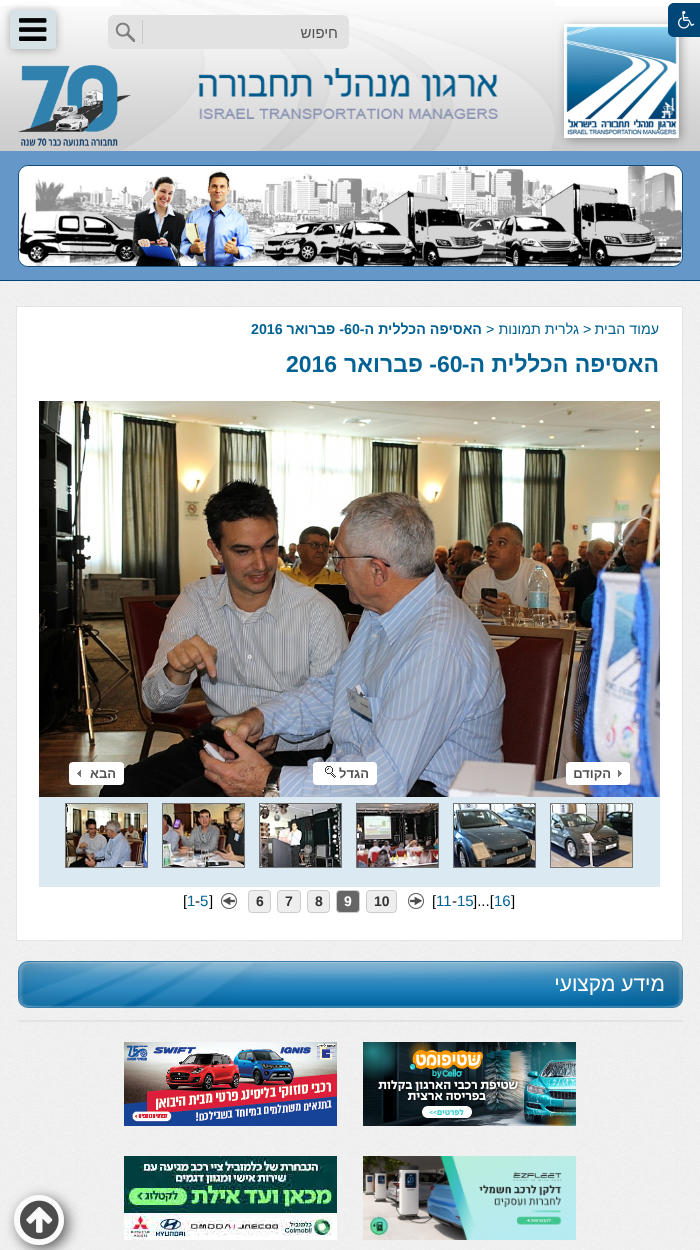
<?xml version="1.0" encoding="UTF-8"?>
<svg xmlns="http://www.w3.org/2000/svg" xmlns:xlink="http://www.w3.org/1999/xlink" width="700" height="1250">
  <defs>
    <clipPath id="clip1"><path d="M 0 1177 h 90 v 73 h -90 z m 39 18 c 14 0 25 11 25 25 c 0 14 -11 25 -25 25 c -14 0 -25 -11 -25 -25 c 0 -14 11 -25 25 -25 z" clip-rule="evenodd" /></clipPath>
  </defs>
  <rect width="100%" height="100%" fill="#ffffff" />
  <image x="0" y="6" width="700" height="145" xlink:href="image2.png" />
  <image x="121" y="0" width="434" height="151" xlink:href="image3.png" />
  <rect y="151" width="700" height="129" fill="#6597c8" />
  <rect x="566" y="26" width="115" height="114" rx="5" fill="#000000" fill-opacity="0.3" filter="blur(5px)" />
  <image x="564" y="24" width="115" height="114" xlink:href="image4.png" />
  <path d="M 674 3 h 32 v 34 h -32 c -3.5 0 -6 -2.5 -6 -6 v -22 c 0 -3.5 2.5 -6 6 -6 z" fill="#004677" />
  <image x="678" y="10" width="17" height="19" xlink:href="image1.png" />
  <rect x="108" y="15" width="241" height="34" rx="6" fill="#e2e2e2" />
  <image x="115" y="20" width="28" height="24" xlink:href="image5.png" />
  <rect x="10" y="11" width="46" height="39" rx="4" fill="#000000" fill-opacity="0.3" filter="blur(4px)" />
  <rect x="10" y="10" width="46" height="39" rx="4" fill="#d7e2e6" />
  <image x="19" y="18" width="28" height="23" xlink:href="image6.png" />
  <image x="198" y="68" width="300" height="51" xlink:href="image7.png" />
  <image x="18" y="65" width="113" height="81" xlink:href="image8.png" />
  <rect y="280" width="700" height="1" fill="#004475" />
  <rect x="18.5" y="165.5" width="664" height="101" rx="9.5" fill="#ffffff" stroke="#0e4e7d" />
  <image x="19" y="166" width="663" height="100" xlink:href="image9.png" />
  <image x="0" y="281" width="700" height="969" xlink:href="image10.png" />
  <rect x="16.5" y="306.5" width="666" height="634" fill="#ffffff" stroke="#e3e3e3" />
  <image x="39" y="401" width="621" height="396" xlink:href="image11.png" />
  <rect x="566" y="762" width="64" height="23" rx="4" fill="#ffffff" />
  <image x="618" y="770" width="4" height="7" xlink:href="image12.png" />
  <rect x="313" y="762" width="64" height="23" rx="4" fill="#ffffff" />
  <image x="325" y="766" width="11" height="12" xlink:href="image13.png" />
  <rect x="69" y="762" width="55" height="23" rx="4" fill="#ffffff" />
  <image x="77" y="770" width="4" height="7" xlink:href="image14.png" />
  <rect x="39" y="797" width="621" height="90" fill="#dbeaf2" />
  <rect x="550.5" y="803.5" width="82" height="64" fill="none" stroke="#757575" />
  <image x="551" y="804" width="81" height="63" xlink:href="image15.png" />
  <rect x="453.5" y="803.5" width="82" height="64" fill="none" stroke="#757575" />
  <image x="454" y="804" width="81" height="63" xlink:href="image16.png" />
  <rect x="356.5" y="803.5" width="82" height="64" fill="none" stroke="#757575" />
  <image x="357" y="804" width="81" height="63" xlink:href="image17.png" />
  <rect x="259.5" y="803.5" width="82" height="64" fill="none" stroke="#757575" />
  <image x="260" y="804" width="81" height="63" xlink:href="image18.png" />
  <rect x="162.5" y="803.5" width="82" height="64" fill="none" stroke="#757575" />
  <image x="163" y="804" width="81" height="63" xlink:href="image19.png" />
  <rect x="65.5" y="803.5" width="82" height="64" fill="none" stroke="#757575" />
  <image x="66" y="804" width="81" height="63" xlink:href="image20.png" />
  <image x="408" y="893" width="16" height="16" xlink:href="image21.png" />
  <rect x="366.5" y="890.5" width="30" height="22" rx="3.5" fill="#eeeeee" stroke="#cccccc" />
  <rect x="336.5" y="890.5" width="23" height="22" rx="3.5" fill="#666666" stroke="#cccccc" />
  <rect x="307.5" y="890.5" width="22" height="22" rx="3.5" fill="#eeeeee" stroke="#cccccc" />
  <rect x="277.5" y="890.5" width="23" height="22" rx="3.5" fill="#eeeeee" stroke="#cccccc" />
  <rect x="248.5" y="890.5" width="22" height="22" rx="3.5" fill="#eeeeee" stroke="#cccccc" />
  <image x="221" y="893" width="16" height="16" xlink:href="image22.png" />
  <image x="19" y="962" width="663" height="45" xlink:href="image23.png" />
  <rect x="18.5" y="961.5" width="664" height="46" rx="9.5" fill="none" stroke="#347dab" />
  <rect x="18" y="1020" width="665" height="2" rx="1" fill="#e3e3e3" />
  <image x="363" y="1042" width="213" height="84" xlink:href="image24.png" />
  <image x="124" y="1042" width="213" height="84" xlink:href="image25.png" />
  <image x="363" y="1156" width="213" height="84" xlink:href="image26.png" />
  <image x="124" y="1156" width="213" height="84" xlink:href="image27.png" />
  <g clip-path="url(#clip1)">
    <rect x="18" y="1199" width="50" height="50" rx="25" fill="#000000" fill-opacity="0.63" filter="blur(7px)" />
  </g>
  <circle cx="39" cy="1220" r="25" fill="#ffffff" fill-opacity="0.7" />
  <image x="20" y="1200" width="39" height="40" xlink:href="image28.png" />
  <text x="338" y="38" style="font-family: Liberation Sans; font-size: 15px; direction: rtl; fill: #515151">חיפוש</text>
  <text x="659" y="334" style="font-family: Liberation Sans; font-size: 14.25px; direction: rtl; fill: #016293">עמוד הבית</text>
  <text x="583" y="334" style="font-family: Liberation Sans; font-size: 14.25px; fill: #016293">&gt;</text>
  <text x="579" y="334" style="font-family: Liberation Sans; font-size: 14.25px; direction: rtl; fill: #016293">גלרית תמונות</text>
  <text x="486" y="334" style="font-family: Liberation Sans; font-size: 14.25px; fill: #016293">&gt;</text>
  <text x="482" y="334" style="font-family: Liberation Sans; font-size: 14.25px; font-weight: bold; direction: rtl; fill: #016293">האסיפה הכללית ה-</text>
  <text x="344" y="334" style="font-family: Liberation Sans; font-size: 14.25px; font-weight: bold; fill: #016293">60</text>
  <text x="344" y="334" style="font-family: Liberation Sans; font-size: 14.25px; font-weight: bold; direction: rtl; fill: #016293">- פברואר</text>
  <text x="251" y="334" style="font-family: Liberation Sans; font-size: 14.25px; font-weight: bold; fill: #016293">2016</text>
  <text x="659" y="372" style="font-family: Liberation Sans; font-size: 23px; font-weight: bold; direction: rtl; fill: #016293">האסיפה הכללית ה-</text>
  <text x="437" y="372" style="font-family: Liberation Sans; font-size: 23px; font-weight: bold; fill: #016293">60</text>
  <text x="437" y="372" style="font-family: Liberation Sans; font-size: 23px; font-weight: bold; direction: rtl; fill: #016293">- פברואר</text>
  <text x="286" y="372" style="font-family: Liberation Sans; font-size: 23px; font-weight: bold; fill: #016293">2016</text>
  <text x="611" y="778" style="font-family: Liberation Sans; font-size: 13px; font-weight: bold; direction: rtl; fill: #515151">הקודם</text>
  <text x="369" y="778" style="font-family: Liberation Sans; font-size: 13px; font-weight: bold; direction: rtl; fill: #515151">הגדל</text>
  <text x="116" y="778" style="font-family: Liberation Sans; font-size: 13px; font-weight: bold; direction: rtl; fill: #515151">הבא</text>
  <text x="511" y="906" style="font-family: Liberation Sans; font-size: 15px; fill: #000000">]</text>
  <text x="494" y="906" style="font-family: Liberation Sans; font-size: 15px; fill: #016293">16</text>
  <text x="473" y="906" style="font-family: Liberation Sans; font-size: 15px; fill: #000000">]...[</text>
  <text x="457" y="906" style="font-family: Liberation Sans; font-size: 15px; fill: #016293">15</text>
  <text x="452" y="906" style="font-family: Liberation Sans; font-size: 15px; fill: #000000">-</text>
  <text x="436" y="906" style="font-family: Liberation Sans; font-size: 15px; fill: #016293">11</text>
  <text x="432" y="906" style="font-family: Liberation Sans; font-size: 15px; fill: #000000">[</text>
  <text x="374" y="906" style="font-family: Liberation Sans; font-size: 14px; font-weight: bold; fill: #333333">10</text>
  <text x="344" y="906" style="font-family: Liberation Sans; font-size: 14px; font-weight: bold; fill: #ffffff">9</text>
  <text x="315" y="906" style="font-family: Liberation Sans; font-size: 14px; font-weight: bold; fill: #333333">8</text>
  <text x="285" y="906" style="font-family: Liberation Sans; font-size: 14px; font-weight: bold; fill: #333333">7</text>
  <text x="256" y="906" style="font-family: Liberation Sans; font-size: 14px; font-weight: bold; fill: #333333">6</text>
  <text x="200" y="906" style="font-family: Liberation Sans; font-size: 15px; fill: #016293">5</text>
  <text x="209" y="906" style="font-family: Liberation Sans; font-size: 15px; fill: #000000">]</text>
  <text x="195" y="906" style="font-family: Liberation Sans; font-size: 15px; fill: #000000">-</text>
  <text x="187" y="906" style="font-family: Liberation Sans; font-size: 15px; fill: #016293">1</text>
  <text x="183" y="906" style="font-family: Liberation Sans; font-size: 15px; fill: #000000">[</text>
  <text x="665" y="991" style="font-family: Liberation Sans; font-size: 21px; direction: rtl; fill: #ffffff">מידע מקצועי</text>
</svg>
